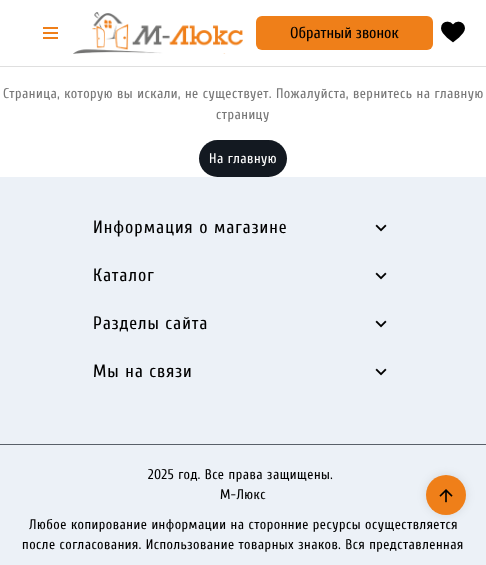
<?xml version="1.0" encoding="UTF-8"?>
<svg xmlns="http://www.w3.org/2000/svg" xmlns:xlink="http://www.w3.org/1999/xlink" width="486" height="565">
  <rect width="100%" height="100%" fill="#ffffff" />
  <rect y="66" width="486" height="1" fill="#dfdfdf" />
  <rect x="43" y="32" width="15" height="2" fill="#ef7f19" />
  <rect x="43" y="27" width="15" height="2" fill="#ef7f19" />
  <rect x="43" y="37" width="15" height="2" fill="#ef7f19" />
  <image x="73" y="12" width="170" height="42" xlink:href="image1.png" />
  <rect x="256" y="16" width="177" height="34" rx="6" fill="#ef7f19" />
  <image x="441" y="21" width="24" height="22" xlink:href="image2.png" />
  <rect x="199" y="140" width="88" height="37" rx="18.5" fill="#131921" />
  <rect y="177" width="486" height="388" fill="#ecf1f7" />
  <image x="375" y="224" width="12" height="8" xlink:href="image3.png" />
  <image x="375" y="272" width="12" height="8" xlink:href="image3.png" />
  <image x="375" y="320" width="12" height="8" xlink:href="image3.png" />
  <image x="375" y="368" width="12" height="8" xlink:href="image3.png" />
  <rect y="444" width="486" height="1" fill="#596069" />
  <rect x="426" y="475" width="40" height="40" rx="20" fill="#000000" fill-opacity="0.1" filter="blur(5px)" />
  <circle cx="446" cy="495" r="20" fill="#ef7f19" />
  <image x="439" y="489" width="14" height="14" xlink:href="image4.png" />
  <text x="290" y="38" style="font-family: Cuprum; font-size: 16px; fill: #000000">Обратный звонок</text>
  <text x="3" y="98" style="font-family: Cuprum; font-size: 14px; letter-spacing: 0.5px; fill: #777777">Страница, которую вы искали, не существует. Пожалуйста, вернитесь на главную</text>
  <text x="216" y="119" style="font-family: Cuprum; font-size: 14px; letter-spacing: 0.5px; fill: #777777">страницу</text>
  <text x="209" y="163" style="font-family: Cuprum; font-size: 14px; letter-spacing: 0.5px; fill: #ffffff">На главную</text>
  <text x="93" y="233" style="font-family: Cuprum; font-size: 18px; letter-spacing: 1px; fill: #000000">Информация о магазине</text>
  <text x="93" y="281" style="font-family: Cuprum; font-size: 18px; letter-spacing: 1px; fill: #000000">Каталог</text>
  <text x="93" y="329" style="font-family: Cuprum; font-size: 18px; letter-spacing: 1px; fill: #000000">Разделы сайта</text>
  <text x="93" y="377" style="font-family: Cuprum; font-size: 18px; letter-spacing: 1px; fill: #000000">Мы на связи</text>
  <text x="148" y="479" style="font-family: Cuprum; font-size: 14px; letter-spacing: 0.5px; fill: #000000">2025 год. Все права защищены.</text>
  <text x="220" y="499" style="font-family: Cuprum; font-size: 14px; letter-spacing: 0.5px; fill: #000000">М-Люкс</text>
  <text x="29" y="529" style="font-family: Cuprum; font-size: 14px; letter-spacing: 0.5px; fill: #000000">Любое копирование информации на сторонние ресурсы осуществляется</text>
  <text x="22" y="549" style="font-family: Cuprum; font-size: 14px; letter-spacing: 0.5px; fill: #000000">после согласования. Использование товарных знаков. Вся представленная</text>
</svg>
